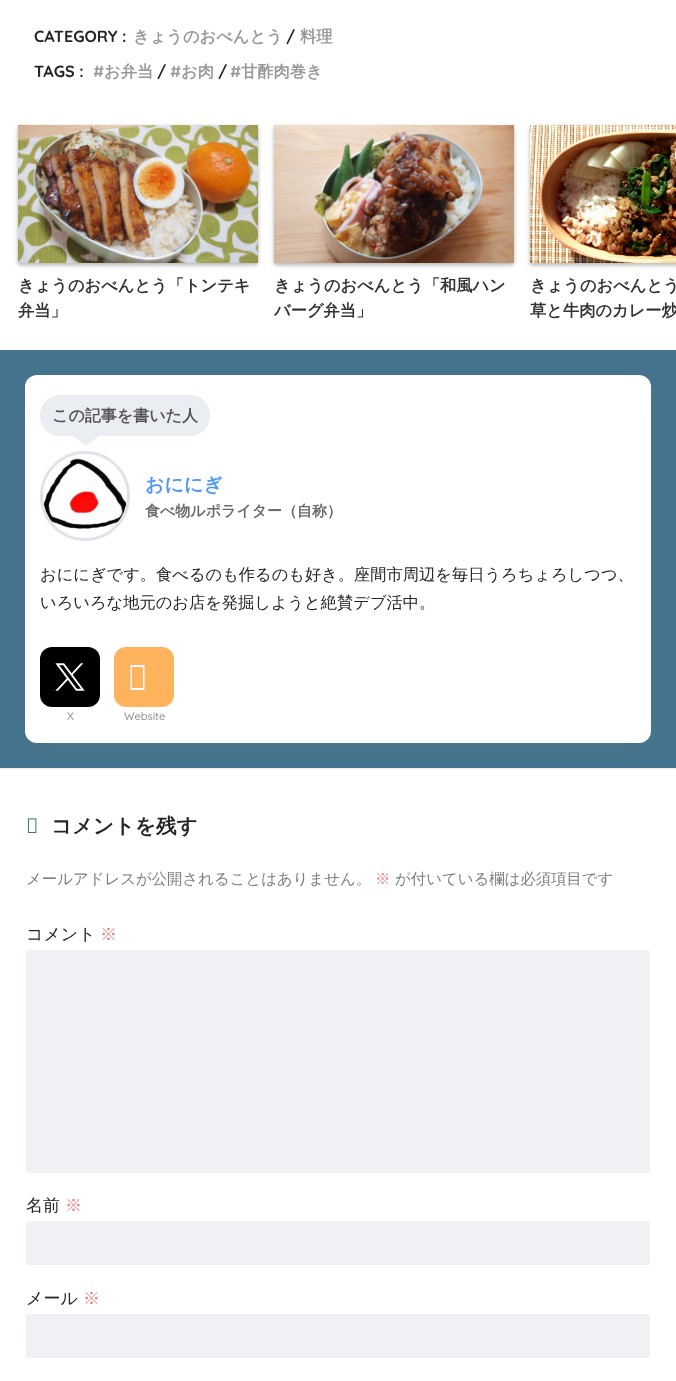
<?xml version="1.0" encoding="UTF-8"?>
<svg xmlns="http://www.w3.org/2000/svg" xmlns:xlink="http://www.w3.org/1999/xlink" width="676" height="1381">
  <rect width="100%" height="100%" fill="#ffffff" />
  <rect x="18" y="127" width="240" height="138" fill="#000000" fill-opacity="0.3" filter="blur(2px)" />
  <image x="18" y="125" width="240" height="138" xlink:href="image1.png" />
  <rect x="274" y="127" width="240" height="138" fill="#000000" fill-opacity="0.3" filter="blur(2px)" />
  <image x="274" y="125" width="240" height="138" xlink:href="image2.png" />
  <rect x="530" y="127" width="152" height="138" fill="#000000" fill-opacity="0.3" filter="blur(2px)" />
  <image x="530" y="125" width="146" height="138" xlink:href="image3.png" />
  <rect y="350" width="676" height="418" fill="#44748e" />
  <rect y="768" width="676" height="1" fill="#eaedf2" />
  <rect x="30" y="385" width="616" height="358" rx="7" fill="#697383" fill-opacity="0.35" filter="blur(10px)" />
  <rect x="25" y="375" width="626" height="368" rx="12" fill="#ffffff" />
  <rect x="40" y="395" width="170" height="41" rx="20" fill="#eaedf2" />
  <path d="M 73 436 h 26 l -13 10 z" fill="#eaedf2" />
  <circle cx="85" cy="496" r="43.5" fill="none" stroke="#dfe2e8" stroke-width="3" />
  <image x="43" y="454" width="84" height="84" xlink:href="image4.png" />
  <rect x="40" y="647" width="60" height="60" rx="12" fill="#000000" />
  <image x="55" y="663" width="30" height="28" xlink:href="image5.png" />
  <rect x="114" y="647" width="60" height="60" rx="12" fill="#ffb35d" />
  <path d="M 130.5 690 v -25 h 14 v 25 z m 1.5 -2 h 11 v -21 h -11 z" fill="#ffffff" />
  <image x="27" y="818" width="10" height="15" xlink:href="image6.png" />
  <rect x="26" y="950" width="624" height="223" rx="3" fill="#eff1f5" />
  <rect x="26" y="1221" width="624" height="44" rx="3" fill="#eff1f5" />
  <rect x="26" y="1314" width="624" height="44" rx="3" fill="#eff1f5" />
  <text x="34" y="42" style="font-family: Quicksand; font-size: 16.25px; font-weight: bold; fill: #252525">CATEGORY :</text>
  <text x="133" y="42" style="font-family: WenQuanYi Zen Hei; font-size: 16.25px; font-weight: bold; fill: #999999">きょうのおべんとう</text>
  <text x="286" y="42" style="font-family: Quicksand; font-size: 16.25px; font-weight: bold; fill: #252525">/</text>
  <text x="300" y="42" style="font-family: WenQuanYi Zen Hei; font-size: 16.25px; font-weight: bold; fill: #999999">料理</text>
  <text x="34" y="77" style="font-family: Quicksand; font-size: 16.25px; font-weight: bold; fill: #252525">TAGS :</text>
  <text x="93" y="77" style="font-family: Quicksand; font-size: 16.25px; font-weight: bold; fill: #999999">#</text>
  <text x="104" y="77" style="font-family: WenQuanYi Zen Hei; font-size: 16.25px; font-weight: bold; fill: #999999">お弁当</text>
  <text x="157" y="77" style="font-family: Quicksand; font-size: 16.25px; font-weight: bold; fill: #252525">/</text>
  <text x="170" y="77" style="font-family: Quicksand; font-size: 16.25px; font-weight: bold; fill: #999999">#</text>
  <text x="181" y="77" style="font-family: WenQuanYi Zen Hei; font-size: 16.25px; font-weight: bold; fill: #999999">お肉</text>
  <text x="218" y="77" style="font-family: Quicksand; font-size: 16.25px; font-weight: bold; fill: #252525">/</text>
  <text x="230" y="77" style="font-family: Quicksand; font-size: 16.25px; font-weight: bold; fill: #999999">#</text>
  <text x="241" y="77" style="font-family: WenQuanYi Zen Hei; font-size: 16.25px; font-weight: bold; fill: #999999">甘酢肉巻き</text>
  <text x="18" y="291" style="font-family: WenQuanYi Zen Hei; font-size: 16.25px; font-weight: bold; fill: #333333">きょうのおべんとう「トンテキ</text>
  <text x="18" y="316" style="font-family: WenQuanYi Zen Hei; font-size: 16.25px; font-weight: bold; fill: #333333">弁当」</text>
  <text x="274" y="291" style="font-family: WenQuanYi Zen Hei; font-size: 16.25px; font-weight: bold; fill: #333333">きょうのおべんとう「和風ハン</text>
  <text x="274" y="316" style="font-family: WenQuanYi Zen Hei; font-size: 16.25px; font-weight: bold; fill: #333333">バーグ弁当」</text>
  <text x="530" y="291" style="font-family: WenQuanYi Zen Hei; font-size: 16.25px; font-weight: bold; fill: #333333">きょうのおべんとう</text>
  <text x="530" y="316" style="font-family: WenQuanYi Zen Hei; font-size: 16.25px; font-weight: bold; fill: #333333">草と牛肉のカレー炒</text>
  <text x="52" y="421" style="font-family: WenQuanYi Zen Hei; font-size: 16px; font-weight: bold; fill: #555555">この記事を書いた人</text>
  <text x="145" y="491" style="font-family: WenQuanYi Zen Hei; font-size: 19px; font-weight: bold; fill: #4f96f6">おににぎ</text>
  <text x="145" y="516" style="font-family: WenQuanYi Zen Hei; font-size: 15px; font-weight: bold; fill: #686868">食べ物ルポライター（自称）</text>
  <text x="40" y="580" style="font-family: WenQuanYi Zen Hei; font-size: 16.25px; font-weight: 500; fill: #252525">おににぎです。食べるのも作るのも好き。座間市周辺を毎日うろちょろしつつ、</text>
  <text x="40" y="608" style="font-family: WenQuanYi Zen Hei; font-size: 16.25px; font-weight: 500; fill: #252525">いろいろな地元のお店を発掘しようと絶賛デブ活中。</text>
  <text x="67" y="720" style="font-family: Quicksand; font-size: 11px; font-weight: 500; fill: #919191">X</text>
  <text x="124" y="720" style="font-family: Quicksand; font-size: 11px; font-weight: 500; fill: #919191">Website</text>
  <text x="51" y="833" style="font-family: WenQuanYi Zen Hei; font-size: 20.5px; font-weight: bold; fill: #252525">コメントを残す</text>
  <text x="26" y="884" style="font-family: WenQuanYi Zen Hei; font-size: 15.4px; font-weight: 500; fill: #7b7e82">メールアドレスが公開されることはありません。</text>
  <text x="375" y="884" style="font-family: WenQuanYi Zen Hei; font-size: 15.4px; font-weight: 500; fill: #ee7b7b">※</text>
  <text x="395" y="884" style="font-family: WenQuanYi Zen Hei; font-size: 15.4px; font-weight: 500; fill: #7b7e82">が付いている欄は必須項目です</text>
  <text x="26" y="940" style="font-family: WenQuanYi Zen Hei; font-size: 17px; font-weight: 500; fill: #252525">コメント</text>
  <text x="100" y="940" style="font-family: WenQuanYi Zen Hei; font-size: 17px; font-weight: 500; fill: #ee7b7b">※</text>
  <text x="26" y="1211" style="font-family: WenQuanYi Zen Hei; font-size: 17px; font-weight: 500; fill: #252525">名前</text>
  <text x="65" y="1211" style="font-family: WenQuanYi Zen Hei; font-size: 17px; font-weight: 500; fill: #ee7b7b">※</text>
  <text x="26" y="1304" style="font-family: WenQuanYi Zen Hei; font-size: 17px; font-weight: 500; fill: #252525">メール</text>
  <text x="83" y="1304" style="font-family: WenQuanYi Zen Hei; font-size: 17px; font-weight: 500; fill: #ee7b7b">※</text>
</svg>
